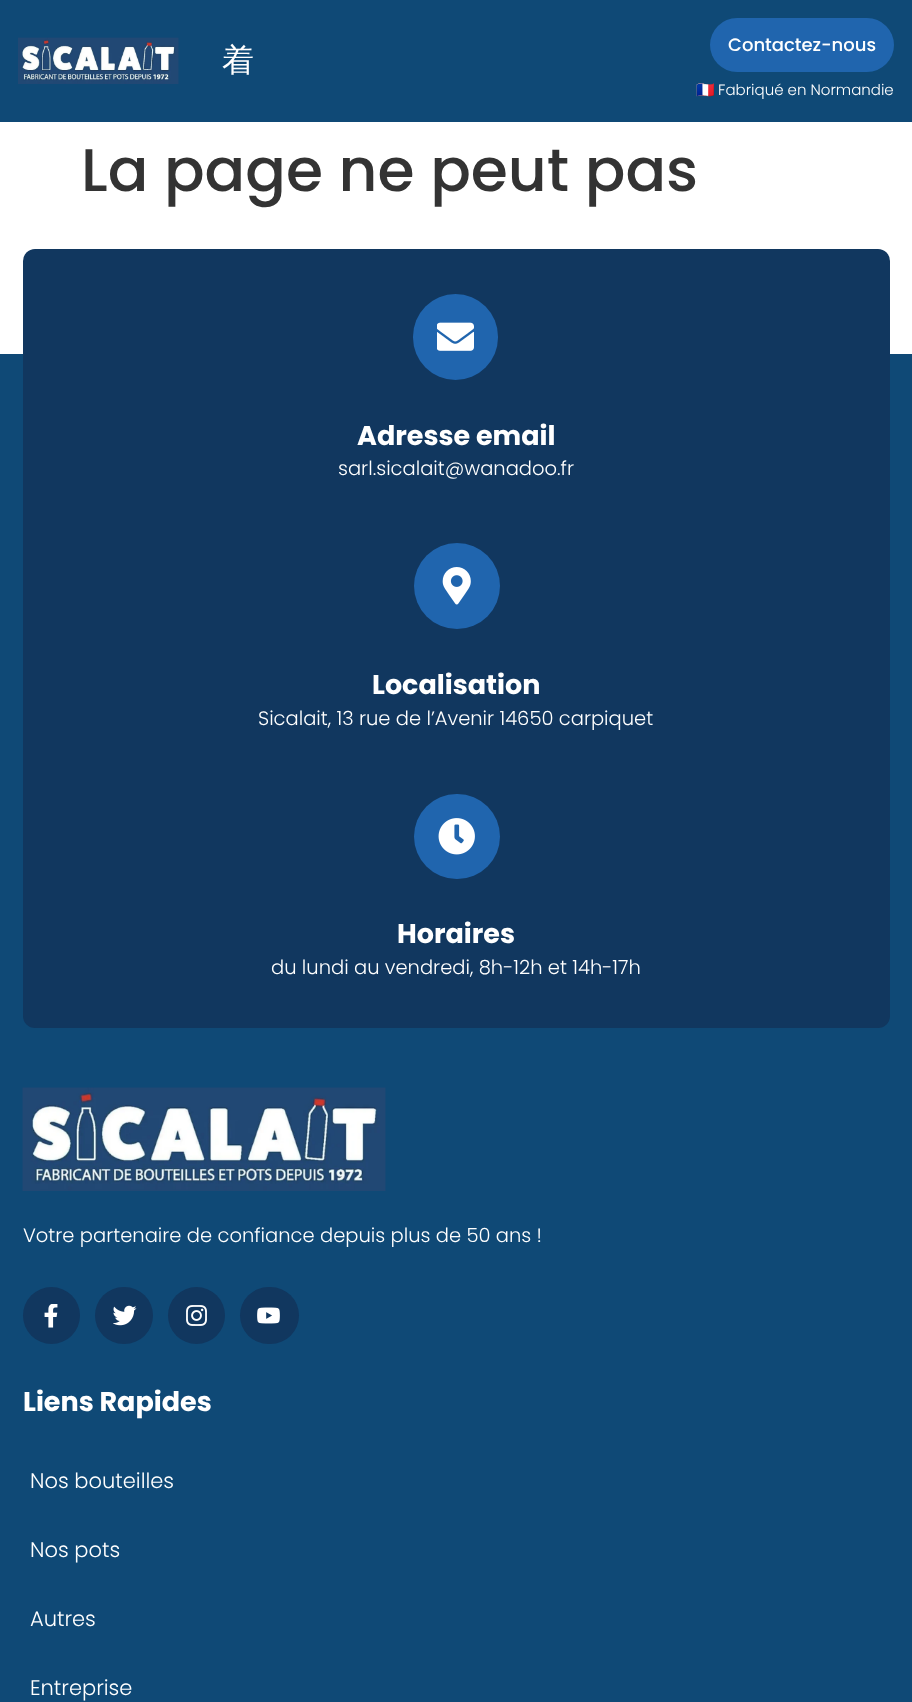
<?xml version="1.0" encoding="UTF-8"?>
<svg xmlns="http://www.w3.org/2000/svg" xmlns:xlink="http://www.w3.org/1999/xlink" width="912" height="1702">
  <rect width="100%" height="100%" fill="#ffffff" />
  <rect width="912" height="122" fill="#0f4976" />
  <image x="18" y="37" width="161" height="47" xlink:href="image1.png" />
  <rect x="710" y="18" width="184" height="54" rx="27" fill="#2065ae" />
  <rect y="354" width="912" height="1348" fill="#0f4976" />
  <rect x="23" y="249" width="867" height="779" rx="12" fill="#11375f" />
  <rect x="413" y="294" width="85" height="86" rx="42.5" fill="#2065ae" />
  <image x="437" y="322" width="37" height="29" xlink:href="image2.png" />
  <circle cx="457" cy="586" r="43" fill="#2065ae" />
  <image x="442" y="567" width="29" height="38" xlink:href="image3.png" />
  <rect x="414" y="794" width="86" height="85" rx="42.5" fill="#2065ae" />
  <image x="438" y="818" width="37" height="37" xlink:href="image4.png" />
  <image x="22" y="1087" width="364" height="104" xlink:href="image5.png" />
  <circle cx="51.5" cy="1315.5" r="28.5" fill="#11375f" />
  <image x="44" y="1304" width="14" height="24" xlink:href="image6.png" />
  <rect x="95" y="1287" width="58" height="57" rx="28.5" fill="#11375f" />
  <image x="113" y="1305" width="24" height="21" xlink:href="image7.png" />
  <circle cx="196.5" cy="1315.5" r="28.5" fill="#11375f" />
  <image x="186" y="1305" width="21" height="21" xlink:href="image8.png" />
  <rect x="240" y="1287" width="59" height="57" rx="28.5" fill="#11375f" />
  <image x="257" y="1307" width="23" height="17" xlink:href="image9.png" />
  <text x="222" y="71" style="font-family: WenQuanYi Zen Hei; font-size: 32px; font-weight: 500; fill: #ffffff">着</text>
  <text x="728" y="51" style="font-family: Poppins; font-size: 18px; font-weight: 500; fill: #ffffff">Contactez-nous</text>
  <text x="696" y="95" style="font-family: Noto Color Emoji; font-size: 15px; fill: #ffffff">🇫🇷</text>
  <text x="718" y="95" style="font-family: Poppins; font-size: 15px; font-weight: 300; fill: #ffffff">Fabriqué en Normandie</text>
  <text x="81" y="191" style="font-family: Poppins; font-size: 60px; font-weight: 500; fill: #333333">La page ne peut pas</text>
  <text x="357" y="445" style="font-family: Poppins; font-size: 27px; font-weight: bold; fill: #ffffff">Adresse email</text>
  <text x="338" y="475" style="font-family: Poppins; font-size: 19.5px; font-weight: 300; fill: #ffffff">sarl.sicalait@wanadoo.fr</text>
  <text x="372" y="694" style="font-family: Poppins; font-size: 27px; font-weight: bold; fill: #ffffff">Localisation</text>
  <text x="258" y="725" style="font-family: Poppins; font-size: 19.5px; font-weight: 300; fill: #ffffff">Sicalait, 13 rue de l’Avenir 14650 carpiquet</text>
  <text x="397" y="943" style="font-family: Poppins; font-size: 27px; font-weight: bold; fill: #ffffff">Horaires</text>
  <text x="271" y="974" style="font-family: Poppins; font-size: 19.5px; font-weight: 300; fill: #ffffff">du lundi au vendredi, 8h-12h et 14h-17h</text>
  <text x="23" y="1242" style="font-family: Poppins; font-size: 19.5px; font-weight: 300; fill: #ffffff">Votre partenaire de confiance depuis plus de 50 ans !</text>
  <text x="23" y="1411" style="font-family: Poppins; font-size: 27px; font-weight: bold; fill: #ffffff">Liens Rapides</text>
  <text x="30" y="1488" style="font-family: Poppins; font-size: 21px; font-weight: 300; fill: #ffffff">Nos bouteilles</text>
  <text x="30" y="1557" style="font-family: Poppins; font-size: 21px; font-weight: 300; fill: #ffffff">Nos pots</text>
  <text x="30" y="1626" style="font-family: Poppins; font-size: 21px; font-weight: 300; fill: #ffffff">Autres</text>
  <text x="30" y="1695" style="font-family: Poppins; font-size: 21px; font-weight: 300; fill: #ffffff">Entreprise</text>
</svg>
